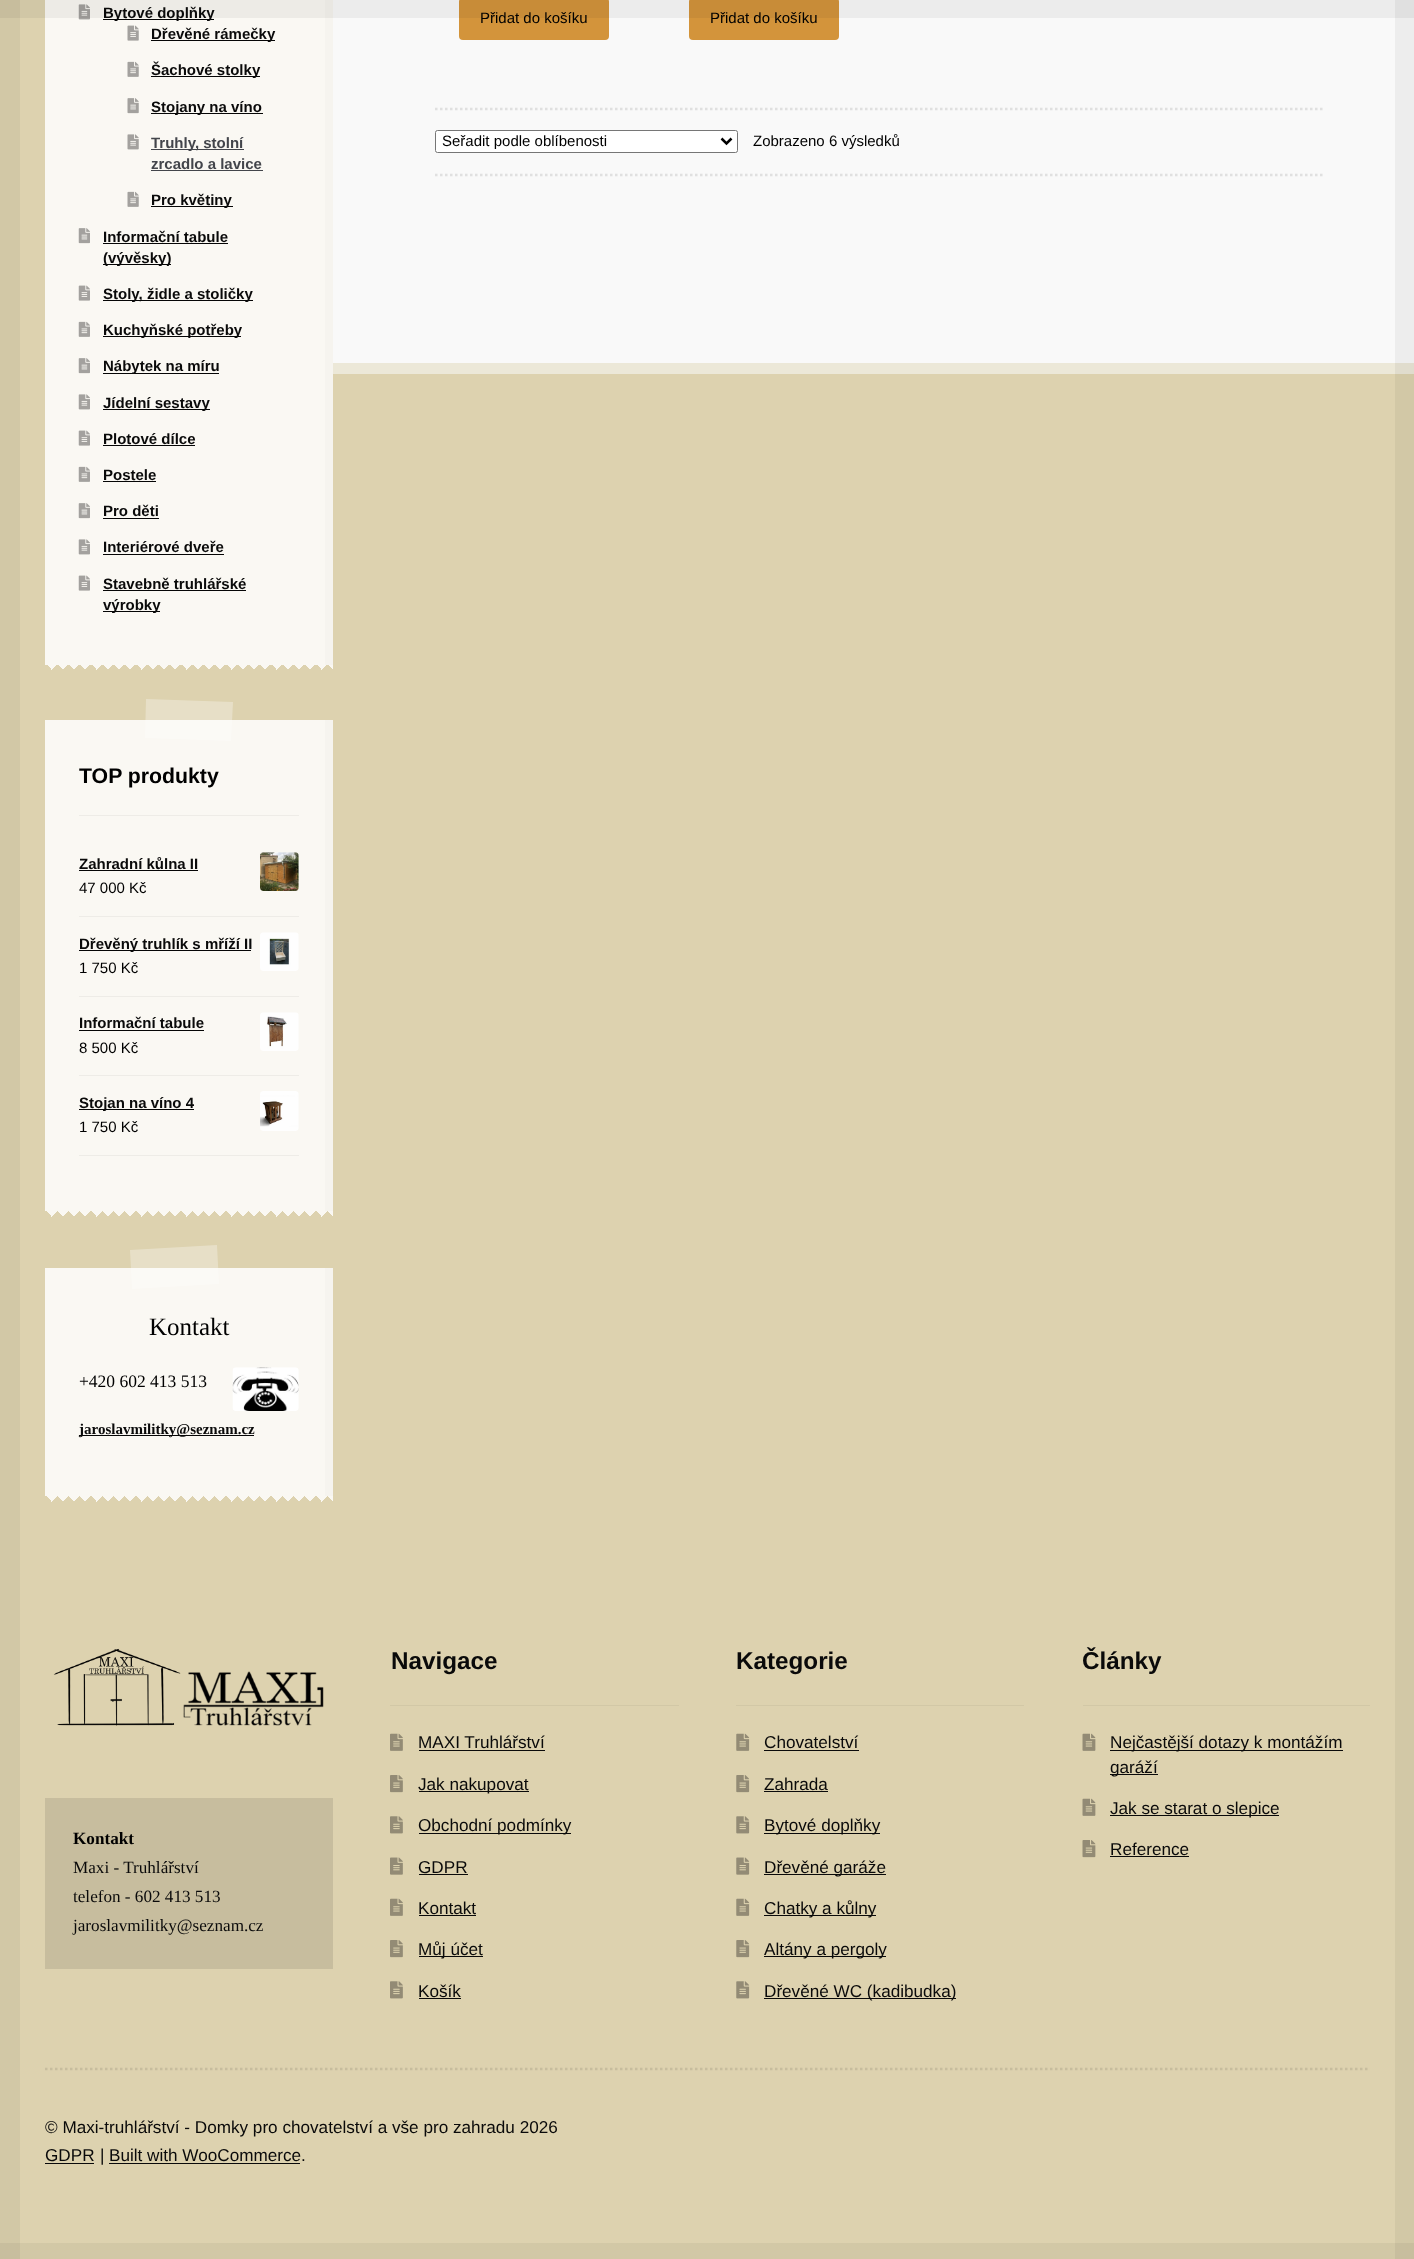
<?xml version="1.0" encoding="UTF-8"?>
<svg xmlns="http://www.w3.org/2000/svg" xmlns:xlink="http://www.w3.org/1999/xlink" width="1414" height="2259">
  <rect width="100%" height="100%" fill="#ddd2af" />
  <rect width="20" height="2243" fill="#d2c8a6" />
  <rect y="2243" width="20" height="16" fill="#c8be9e" />
  <rect x="20" y="2243" width="1375" height="16" fill="#d2c8a6" />
  <rect x="1395" y="374" width="19" height="1869" fill="#d2c8a6" />
  <rect x="1395" y="2243" width="19" height="16" fill="#c8be9e" />
  <rect x="45" width="280" height="665" fill="#faf8f3" />
  <rect x="325" width="8" height="665" fill="#f6f4ef" />
  <image x="78" y="4" width="12" height="16" xlink:href="image1.png" />
  <rect x="333" width="1062" height="363" fill="#f9f9f9" />
  <rect x="1395" width="19" height="363" fill="#ededed" />
  <rect x="459" y="-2" width="150" height="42" rx="4" fill="#d3943b" />
  <rect x="689" y="-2" width="150" height="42" rx="4" fill="#d3943b" />
  <rect width="1414" height="18" fill="#000000" fill-opacity="0.05" />
  <rect x="103" y="19" width="111" height="1" fill="#050505" />
  <image x="127" y="25" width="12" height="16" xlink:href="image2.png" />
  <rect x="151" y="40" width="124" height="1" fill="#050505" />
  <image x="127" y="61" width="12" height="16" xlink:href="image3.png" />
  <rect x="151" y="76" width="109" height="1" fill="#050505" />
  <image x="127" y="98" width="12" height="16" xlink:href="image4.png" />
  <rect x="151" y="113" width="112" height="1" fill="#050505" />
  <image x="127" y="134" width="12" height="16" xlink:href="image5.png" />
  <rect x="151" y="149" width="93" height="1" fill="#43454b" />
  <rect x="151" y="170" width="112" height="1" fill="#43454b" />
  <image x="127" y="191" width="12" height="16" xlink:href="image3.png" />
  <rect x="151" y="206" width="82" height="1" fill="#050505" />
  <image x="78" y="228" width="12" height="16" xlink:href="image6.png" />
  <rect x="103" y="243" width="125" height="1" fill="#050505" />
  <rect x="103" y="264" width="68" height="1" fill="#050505" />
  <image x="78" y="285" width="12" height="16" xlink:href="image7.png" />
  <rect x="103" y="300" width="150" height="1" fill="#050505" />
  <image x="78" y="321" width="12" height="16" xlink:href="image8.png" />
  <rect x="103" y="336" width="138" height="1" fill="#050505" />
  <image x="78" y="358" width="12" height="16" xlink:href="image6.png" />
  <rect x="103" y="373" width="116" height="1" fill="#050505" />
  <image x="78" y="394" width="12" height="16" xlink:href="image1.png" />
  <rect x="103" y="409" width="107" height="1" fill="#050505" />
  <image x="78" y="430" width="12" height="16" xlink:href="image7.png" />
  <rect x="103" y="445" width="92" height="1" fill="#050505" />
  <image x="78" y="466" width="12" height="16" xlink:href="image8.png" />
  <rect x="103" y="481" width="53" height="1" fill="#050505" />
  <image x="78" y="503" width="12" height="16" xlink:href="image6.png" />
  <rect x="103" y="518" width="56" height="1" fill="#050505" />
  <image x="78" y="539" width="12" height="16" xlink:href="image1.png" />
  <rect x="103" y="554" width="121" height="1" fill="#050505" />
  <image x="78" y="575" width="12" height="16" xlink:href="image7.png" />
  <rect x="103" y="590" width="143" height="1" fill="#050505" />
  <rect x="103" y="611" width="57" height="1" fill="#050505" />
  <image x="48" y="665" width="285" height="4" xlink:href="image9.png" />
  <image x="51" y="665" width="275" height="5" xlink:href="image10.png" />
  <rect x="45" y="720" width="280" height="491" fill="#faf8f3" />
  <rect x="325" y="720" width="8" height="491" fill="#f6f4ef" />
  <path d="M 146 699 l 87 3 l -2 39 l -86 -3 z" fill="#ffffff" fill-opacity="0.3" />
  <rect x="79" y="815" width="220" height="1" fill="#eeece7" />
  <rect x="79" y="916" width="220" height="1" fill="#eeece7" />
  <rect x="79" y="870" width="119" height="1" fill="#050505" />
  <image x="260" y="852" width="39" height="39" xlink:href="image11.png" />
  <rect x="79" y="996" width="220" height="1" fill="#eeece7" />
  <rect x="79" y="950" width="172" height="1" fill="#050505" />
  <image x="260" y="932" width="39" height="39" xlink:href="image12.png" />
  <rect x="79" y="1075" width="220" height="1" fill="#eeece7" />
  <rect x="79" y="1030" width="125" height="1" fill="#050505" />
  <image x="260" y="1012" width="39" height="39" xlink:href="image13.png" />
  <rect x="79" y="1155" width="220" height="1" fill="#eeece7" />
  <rect x="79" y="1109" width="115" height="1" fill="#050505" />
  <image x="260" y="1091" width="39" height="40" xlink:href="image14.png" />
  <image x="47" y="1211" width="286" height="5" xlink:href="image15.png" />
  <image x="51" y="1211" width="276" height="6" xlink:href="image16.png" />
  <rect x="45" y="1268" width="280" height="228" fill="#faf8f3" />
  <rect x="325" y="1268" width="8" height="228" fill="#f6f4ef" />
  <path d="M 130 1250 l 87 -5 l 2 39 l -87 5 z" fill="#ffffff" fill-opacity="0.3" />
  <image x="232" y="1367" width="67" height="44" xlink:href="image17.png" />
  <rect x="79" y="1435" width="175" height="1" fill="#050505" />
  <image x="47" y="1496" width="286" height="5" xlink:href="image15.png" />
  <image x="51" y="1496" width="276" height="6" xlink:href="image16.png" />
  <path d="M 435 109 h 890" fill="none" stroke="#e0e0e0" stroke-width="2.5" stroke-dasharray="2.5 2.5" />
  <path d="M 435 175 h 890" fill="none" stroke="#e0e0e0" stroke-width="2.5" stroke-dasharray="2.5 2.5" />
  <rect x="435.5" y="130.5" width="302" height="22" rx="2" fill="#ffffff" stroke="#767676" />
  <path d="M 721.5 138.5 l 5 5 l 5 -5" fill="none" stroke="#000000" stroke-width="2.5" />
  <rect x="333" y="363" width="1062" height="11" fill="#ece8d8" />
  <rect x="1395" y="363" width="19" height="11" fill="#e0dccd" />
  <path d="M 45 2069 h 1325" fill="none" stroke="#c7bd9e" stroke-width="2.5" stroke-dasharray="2.5 2.5" />
  <image x="53" y="1648" width="271" height="78" xlink:href="image18.png" />
  <rect x="45" y="1798" width="288" height="171" fill="#c7bd9e" />
  <rect x="390" y="1705" width="289" height="1" fill="#d2c8a6" />
  <image x="390" y="1733" width="13" height="18" xlink:href="image19.png" />
  <rect x="419" y="1750" width="126" height="1" fill="#0a0a0a" />
  <image x="390" y="1775" width="13" height="18" xlink:href="image20.png" />
  <rect x="419" y="1791" width="110" height="1" fill="#0a0a0a" />
  <image x="390" y="1816" width="13" height="18" xlink:href="image21.png" />
  <rect x="419" y="1833" width="152" height="1" fill="#0a0a0a" />
  <image x="390" y="1857" width="13" height="18" xlink:href="image22.png" />
  <rect x="419" y="1874" width="49" height="1" fill="#0a0a0a" />
  <image x="390" y="1898" width="13" height="18" xlink:href="image19.png" />
  <rect x="419" y="1915" width="57" height="1" fill="#0a0a0a" />
  <image x="390" y="1940" width="13" height="18" xlink:href="image20.png" />
  <rect x="419" y="1956" width="64" height="1" fill="#0a0a0a" />
  <image x="390" y="1981" width="13" height="18" xlink:href="image21.png" />
  <rect x="419" y="1998" width="42" height="1" fill="#0a0a0a" />
  <rect x="736" y="1705" width="288" height="1" fill="#d2c8a6" />
  <image x="736" y="1733" width="14" height="18" xlink:href="image23.png" />
  <rect x="764" y="1750" width="95" height="1" fill="#0a0a0a" />
  <image x="736" y="1775" width="14" height="18" xlink:href="image24.png" />
  <rect x="764" y="1791" width="64" height="1" fill="#0a0a0a" />
  <image x="736" y="1816" width="14" height="18" xlink:href="image25.png" />
  <rect x="764" y="1833" width="116" height="1" fill="#0a0a0a" />
  <image x="736" y="1857" width="14" height="18" xlink:href="image26.png" />
  <rect x="764" y="1874" width="122" height="1" fill="#0a0a0a" />
  <image x="736" y="1898" width="14" height="18" xlink:href="image23.png" />
  <rect x="764" y="1915" width="112" height="1" fill="#0a0a0a" />
  <image x="736" y="1940" width="14" height="18" xlink:href="image24.png" />
  <rect x="764" y="1956" width="122" height="1" fill="#0a0a0a" />
  <image x="736" y="1981" width="14" height="18" xlink:href="image25.png" />
  <rect x="764" y="1998" width="192" height="1" fill="#0a0a0a" />
  <rect x="1083" y="1705" width="287" height="1" fill="#d2c8a6" />
  <image x="1082" y="1733" width="14" height="18" xlink:href="image27.png" />
  <rect x="1110" y="1750" width="233" height="1" fill="#0a0a0a" />
  <rect x="1110" y="1774" width="48" height="1" fill="#0a0a0a" />
  <image x="1082" y="1798" width="14" height="18" xlink:href="image27.png" />
  <rect x="1110" y="1815" width="169" height="1" fill="#0a0a0a" />
  <image x="1082" y="1840" width="14" height="18" xlink:href="image28.png" />
  <rect x="1110" y="1856" width="79" height="1" fill="#0a0a0a" />
  <rect x="45" y="2163" width="49" height="1" fill="#0a0a0a" />
  <rect x="109" y="2163" width="191" height="1" fill="#0a0a0a" />
  <text x="103" y="18" style="font-family: Liberation Sans; font-size: 15px; font-weight: bold; fill: #0a0a0a">Bytové doplňky</text>
  <text x="151" y="39" style="font-family: Liberation Sans; font-size: 15px; font-weight: bold; fill: #0a0a0a">Dřevěné rámečky</text>
  <text x="151" y="75" style="font-family: Liberation Sans; font-size: 15px; font-weight: bold; fill: #0a0a0a">Šachové stolky</text>
  <text x="151" y="112" style="font-family: Liberation Sans; font-size: 15px; font-weight: bold; fill: #0a0a0a">Stojany na víno</text>
  <text x="151" y="148" style="font-family: Liberation Sans; font-size: 15px; font-weight: bold; fill: #43454b">Truhly, stolní</text>
  <text x="151" y="169" style="font-family: Liberation Sans; font-size: 15px; font-weight: bold; fill: #43454b">zrcadlo a lavice</text>
  <text x="151" y="205" style="font-family: Liberation Sans; font-size: 15px; font-weight: bold; fill: #0a0a0a">Pro květiny</text>
  <text x="103" y="242" style="font-family: Liberation Sans; font-size: 15px; font-weight: bold; fill: #0a0a0a">Informační tabule</text>
  <text x="103" y="263" style="font-family: Liberation Sans; font-size: 15px; font-weight: bold; fill: #0a0a0a">(vývěsky)</text>
  <text x="103" y="299" style="font-family: Liberation Sans; font-size: 15px; font-weight: bold; fill: #0a0a0a">Stoly, židle a stoličky</text>
  <text x="103" y="335" style="font-family: Liberation Sans; font-size: 15px; font-weight: bold; fill: #0a0a0a">Kuchyňské potřeby</text>
  <text x="103" y="371" style="font-family: Liberation Sans; font-size: 15px; font-weight: bold; fill: #0a0a0a">Nábytek na míru</text>
  <text x="103" y="408" style="font-family: Liberation Sans; font-size: 15px; font-weight: bold; fill: #0a0a0a">Jídelní sestavy</text>
  <text x="103" y="444" style="font-family: Liberation Sans; font-size: 15px; font-weight: bold; fill: #0a0a0a">Plotové dílce</text>
  <text x="103" y="480" style="font-family: Liberation Sans; font-size: 15px; font-weight: bold; fill: #0a0a0a">Postele</text>
  <text x="103" y="516" style="font-family: Liberation Sans; font-size: 15px; font-weight: bold; fill: #0a0a0a">Pro děti</text>
  <text x="103" y="552" style="font-family: Liberation Sans; font-size: 15px; font-weight: bold; fill: #0a0a0a">Interiérové dveře</text>
  <text x="103" y="589" style="font-family: Liberation Sans; font-size: 15px; font-weight: bold; fill: #0a0a0a">Stavebně truhlářské</text>
  <text x="103" y="610" style="font-family: Liberation Sans; font-size: 15px; font-weight: bold; fill: #0a0a0a">výrobky</text>
  <text x="79" y="783" style="font-family: Liberation Sans; font-size: 21.25px; font-weight: bold; fill: #000000">TOP produkty</text>
  <text x="79" y="869" style="font-family: Liberation Sans; font-size: 15px; font-weight: bold; fill: #0a0a0a">Zahradní kůlna II</text>
  <text x="79" y="893" style="font-family: Liberation Sans; font-size: 15px; fill: #000000">47 000 Kč</text>
  <text x="79" y="949" style="font-family: Liberation Sans; font-size: 15px; font-weight: bold; fill: #0a0a0a">Dřevěný truhlík s mříží II</text>
  <text x="79" y="973" style="font-family: Liberation Sans; font-size: 15px; fill: #000000">1 750 Kč</text>
  <text x="79" y="1028" style="font-family: Liberation Sans; font-size: 15px; font-weight: bold; fill: #0a0a0a">Informační tabule</text>
  <text x="79" y="1053" style="font-family: Liberation Sans; font-size: 15px; fill: #000000">8 500 Kč</text>
  <text x="79" y="1108" style="font-family: Liberation Sans; font-size: 15px; font-weight: bold; fill: #0a0a0a">Stojan na víno 4</text>
  <text x="79" y="1132" style="font-family: Liberation Sans; font-size: 15px; fill: #000000">1 750 Kč</text>
  <text x="149" y="1335" style="font-family: Liberation Serif; font-size: 25px; fill: #000000">Kontakt</text>
  <text x="79" y="1387" style="font-family: Liberation Serif; font-size: 17.5px; fill: #000000">+420 602 413 513</text>
  <text x="79" y="1434" style="font-family: Liberation Serif; font-size: 15px; font-weight: bold; fill: #0a0a0a">jaroslavmilitky@seznam.cz</text>
  <text x="480" y="23" style="font-family: Liberation Sans; font-size: 15px; fill: #000000">Přidat do košíku</text>
  <text x="710" y="23" style="font-family: Liberation Sans; font-size: 15px; fill: #000000">Přidat do košíku</text>
  <text x="442" y="146" style="font-family: Liberation Sans; font-size: 15px; fill: #000000">Seřadit podle oblíbenosti</text>
  <text x="753" y="146" style="font-family: Liberation Sans; font-size: 15px; fill: #000000">Zobrazeno 6 výsledků</text>
  <text x="73" y="1844" style="font-family: Liberation Serif; font-size: 17.15px; font-weight: bold; fill: #000000">Kontakt</text>
  <text x="73" y="1873" style="font-family: Liberation Serif; font-size: 17.15px; fill: #0a0a0a">Maxi - Truhlářství</text>
  <text x="73" y="1902" style="font-family: Liberation Serif; font-size: 17.15px; fill: #0a0a0a">telefon - 602 413 513</text>
  <text x="73" y="1931" style="font-family: Liberation Serif; font-size: 17.15px; fill: #0a0a0a">jaroslavmilitky@seznam.cz</text>
  <text x="391" y="1669" style="font-family: Liberation Sans; font-size: 24.25px; font-weight: bold; fill: #0a0a0a">Navigace</text>
  <text x="418" y="1748" style="font-family: Liberation Sans; font-size: 17.15px; fill: #0a0a0a">MAXI Truhlářství</text>
  <text x="418" y="1790" style="font-family: Liberation Sans; font-size: 17.15px; fill: #0a0a0a">Jak nakupovat</text>
  <text x="418" y="1831" style="font-family: Liberation Sans; font-size: 17.15px; fill: #0a0a0a">Obchodní podmínky</text>
  <text x="418" y="1873" style="font-family: Liberation Sans; font-size: 17.15px; fill: #0a0a0a">GDPR</text>
  <text x="418" y="1914" style="font-family: Liberation Sans; font-size: 17.15px; fill: #0a0a0a">Kontakt</text>
  <text x="418" y="1955" style="font-family: Liberation Sans; font-size: 17.15px; fill: #0a0a0a">Můj účet</text>
  <text x="418" y="1997" style="font-family: Liberation Sans; font-size: 17.15px; fill: #0a0a0a">Košík</text>
  <text x="736" y="1669" style="font-family: Liberation Sans; font-size: 24.25px; font-weight: bold; fill: #0a0a0a">Kategorie</text>
  <text x="764" y="1748" style="font-family: Liberation Sans; font-size: 17.15px; fill: #0a0a0a">Chovatelství</text>
  <text x="764" y="1790" style="font-family: Liberation Sans; font-size: 17.15px; fill: #0a0a0a">Zahrada</text>
  <text x="764" y="1831" style="font-family: Liberation Sans; font-size: 17.15px; fill: #0a0a0a">Bytové doplňky</text>
  <text x="764" y="1873" style="font-family: Liberation Sans; font-size: 17.15px; fill: #0a0a0a">Dřevěné garáže</text>
  <text x="764" y="1914" style="font-family: Liberation Sans; font-size: 17.15px; fill: #0a0a0a">Chatky a kůlny</text>
  <text x="764" y="1955" style="font-family: Liberation Sans; font-size: 17.15px; fill: #0a0a0a">Altány a pergoly</text>
  <text x="764" y="1997" style="font-family: Liberation Sans; font-size: 17.15px; fill: #0a0a0a">Dřevěné WC (kadibudka)</text>
  <text x="1082" y="1669" style="font-family: Liberation Sans; font-size: 24.25px; font-weight: bold; fill: #0a0a0a">Články</text>
  <text x="1110" y="1748" style="font-family: Liberation Sans; font-size: 17.15px; fill: #0a0a0a">Nejčastější dotazy k montážím</text>
  <text x="1110" y="1773" style="font-family: Liberation Sans; font-size: 17.15px; fill: #0a0a0a">garáží</text>
  <text x="1110" y="1814" style="font-family: Liberation Sans; font-size: 17.15px; fill: #0a0a0a">Jak se starat o slepice</text>
  <text x="1110" y="1855" style="font-family: Liberation Sans; font-size: 17.15px; fill: #0a0a0a">Reference</text>
  <text x="45" y="2133" style="font-family: Liberation Sans; font-size: 17.15px; fill: #0a0a0a">© Maxi-truhlářství - Domky pro chovatelství a vše pro zahradu 2026</text>
  <text x="45" y="2161" style="font-family: Liberation Sans; font-size: 17.15px; fill: #0a0a0a">GDPR</text>
  <text x="100" y="2161" style="font-family: Liberation Sans; font-size: 17.15px; fill: #0a0a0a">|</text>
  <text x="109" y="2161" style="font-family: Liberation Sans; font-size: 17.15px; fill: #0a0a0a">Built with WooCommerce.</text>
</svg>
